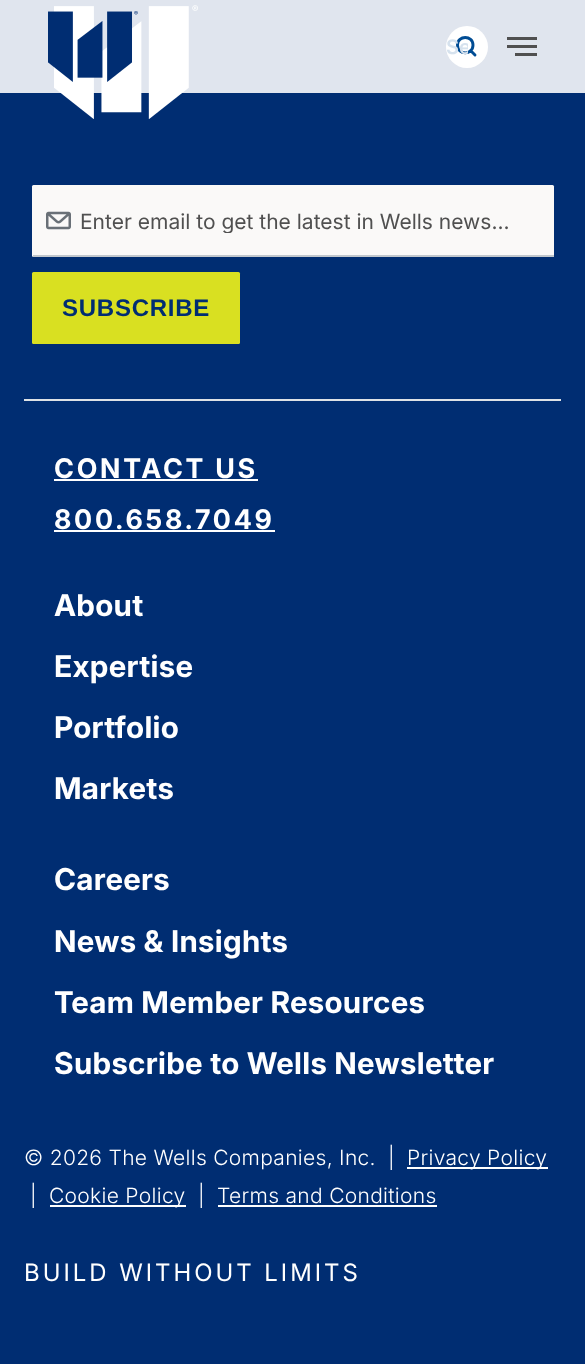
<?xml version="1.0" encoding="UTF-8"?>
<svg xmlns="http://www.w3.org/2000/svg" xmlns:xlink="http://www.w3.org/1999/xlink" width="585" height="1364">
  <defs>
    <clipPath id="clip1"><rect x="446" y="35" width="22" height="24" /></clipPath>
    <clipPath id="clip2"><rect x="80" y="207" width="462" height="26" /></clipPath>
  </defs>
  <rect width="100%" height="100%" fill="#002d72" />
  <image x="54" y="5" width="144" height="114" xlink:href="image2.png" />
  <rect width="585" height="93" fill="#ffffff" fill-opacity="0.88" />
  <image x="48" y="11" width="90" height="71" xlink:href="image1.png" />
  <circle cx="467" cy="47" r="21" fill="#ffffff" />
  <path d="M 473 45 c 0 10.5 -15.5 10.5 -15.5 0 c 0 -10 15.5 -10 15.5 0 z m 2 10 l -4.5 -4.5" fill="none" stroke="#004c94" stroke-width="2.9" stroke-linecap="round" stroke-linejoin="round" />
  <rect x="515" y="53" width="22" height="3" fill="#505050" />
  <rect x="507" y="45" width="30" height="3" fill="#505050" />
  <rect x="507" y="37" width="30" height="3" fill="#505050" />
  <rect x="32" y="185" width="522" height="72" rx="1.5" fill="#faf9f8" />
  <image x="46" y="211" width="25" height="19" xlink:href="image3.png" />
  <rect x="33" y="255" width="521" height="2" fill="#c1c7cd" />
  <rect x="32" y="272" width="208" height="72" rx="1.5" fill="#d9e021" />
  <rect x="24" y="399" width="537" height="2" fill="#dee2e6" />
  <rect x="54" y="479" width="204" height="2" fill="#ffffff" />
  <rect x="54" y="530" width="221" height="2" fill="#ffffff" />
  <rect x="407" y="1167" width="141" height="2" fill="#ffffff" />
  <rect x="50" y="1205" width="136" height="2" fill="#ffffff" />
  <rect x="218" y="1205" width="219" height="2" fill="#ffffff" />
  <g clip-path="url(#clip1)">
    <text x="446" y="54" style="font-family: Inter; font-size: 20px; font-weight: 600; fill: #d6e2ee">Se</text>
  </g>
  <g clip-path="url(#clip2)">
    <text x="80" y="229" style="font-family: Inter; font-size: 21px; fill: #505050">Enter email to get the latest in Wells news...</text>
  </g>
  <text x="62" y="316" style="font-family: Liberation Sans; font-size: 24px; font-weight: bold; letter-spacing: 0.75px; fill: #002d72">SUBSCRIBE</text>
  <text x="54" y="478" style="font-family: Inter; font-size: 27px; font-weight: bold; letter-spacing: 2.75px; fill: #ffffff">CONTACT US</text>
  <text x="54" y="529" style="font-family: Inter; font-size: 27px; font-weight: bold; letter-spacing: 2.75px; fill: #ffffff">800.658.7049</text>
  <text x="54" y="616" style="font-family: 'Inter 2'; font-size: 30px; font-weight: bold; letter-spacing: 0.3px; fill: #ffffff">About</text>
  <text x="54" y="677" style="font-family: 'Inter 2'; font-size: 30px; font-weight: bold; letter-spacing: 0.3px; fill: #ffffff">Expertise</text>
  <text x="54" y="738" style="font-family: 'Inter 2'; font-size: 30px; font-weight: bold; letter-spacing: 0.3px; fill: #ffffff">Portfolio</text>
  <text x="54" y="799" style="font-family: 'Inter 2'; font-size: 30px; font-weight: bold; letter-spacing: 0.3px; fill: #ffffff">Markets</text>
  <text x="54" y="890" style="font-family: 'Inter 2'; font-size: 30px; font-weight: bold; letter-spacing: 0.3px; fill: #ffffff">Careers</text>
  <text x="54" y="952" style="font-family: 'Inter 2'; font-size: 30px; font-weight: bold; letter-spacing: 0.3px; fill: #ffffff">News &amp; Insights</text>
  <text x="54" y="1013" style="font-family: 'Inter 2'; font-size: 30px; font-weight: bold; letter-spacing: 0.3px; fill: #ffffff">Team Member Resources</text>
  <text x="54" y="1074" style="font-family: 'Inter 2'; font-size: 30px; font-weight: bold; letter-spacing: 0.3px; fill: #ffffff">Subscribe to Wells Newsletter</text>
  <text x="24" y="1165" style="font-family: Inter; font-size: 21px; font-weight: 300; letter-spacing: 0.3px; fill: #ffffff">© 2026 The Wells Companies, Inc.</text>
  <text x="388" y="1165" style="font-family: Inter; font-size: 21px; font-weight: 300; letter-spacing: 0.3px; fill: #ffffff">|</text>
  <text x="407" y="1165" style="font-family: Inter; font-size: 21px; font-weight: 300; letter-spacing: 0.3px; fill: #ffffff">Privacy Policy</text>
  <text x="30" y="1203" style="font-family: Inter; font-size: 21px; font-weight: 300; letter-spacing: 0.3px; fill: #ffffff">|</text>
  <text x="49" y="1203" style="font-family: Inter; font-size: 21px; font-weight: 300; letter-spacing: 0.3px; fill: #ffffff">Cookie Policy</text>
  <text x="198" y="1203" style="font-family: Inter; font-size: 21px; font-weight: 300; letter-spacing: 0.3px; fill: #ffffff">|</text>
  <text x="217" y="1203" style="font-family: Inter; font-size: 21px; font-weight: 300; letter-spacing: 0.3px; fill: #ffffff">Terms and Conditions</text>
  <text x="24" y="1281" style="font-family: 'Inter 2'; font-size: 24px; letter-spacing: 3px; fill: #ffffff">BUILD WITHOUT LIMITS</text>
</svg>
